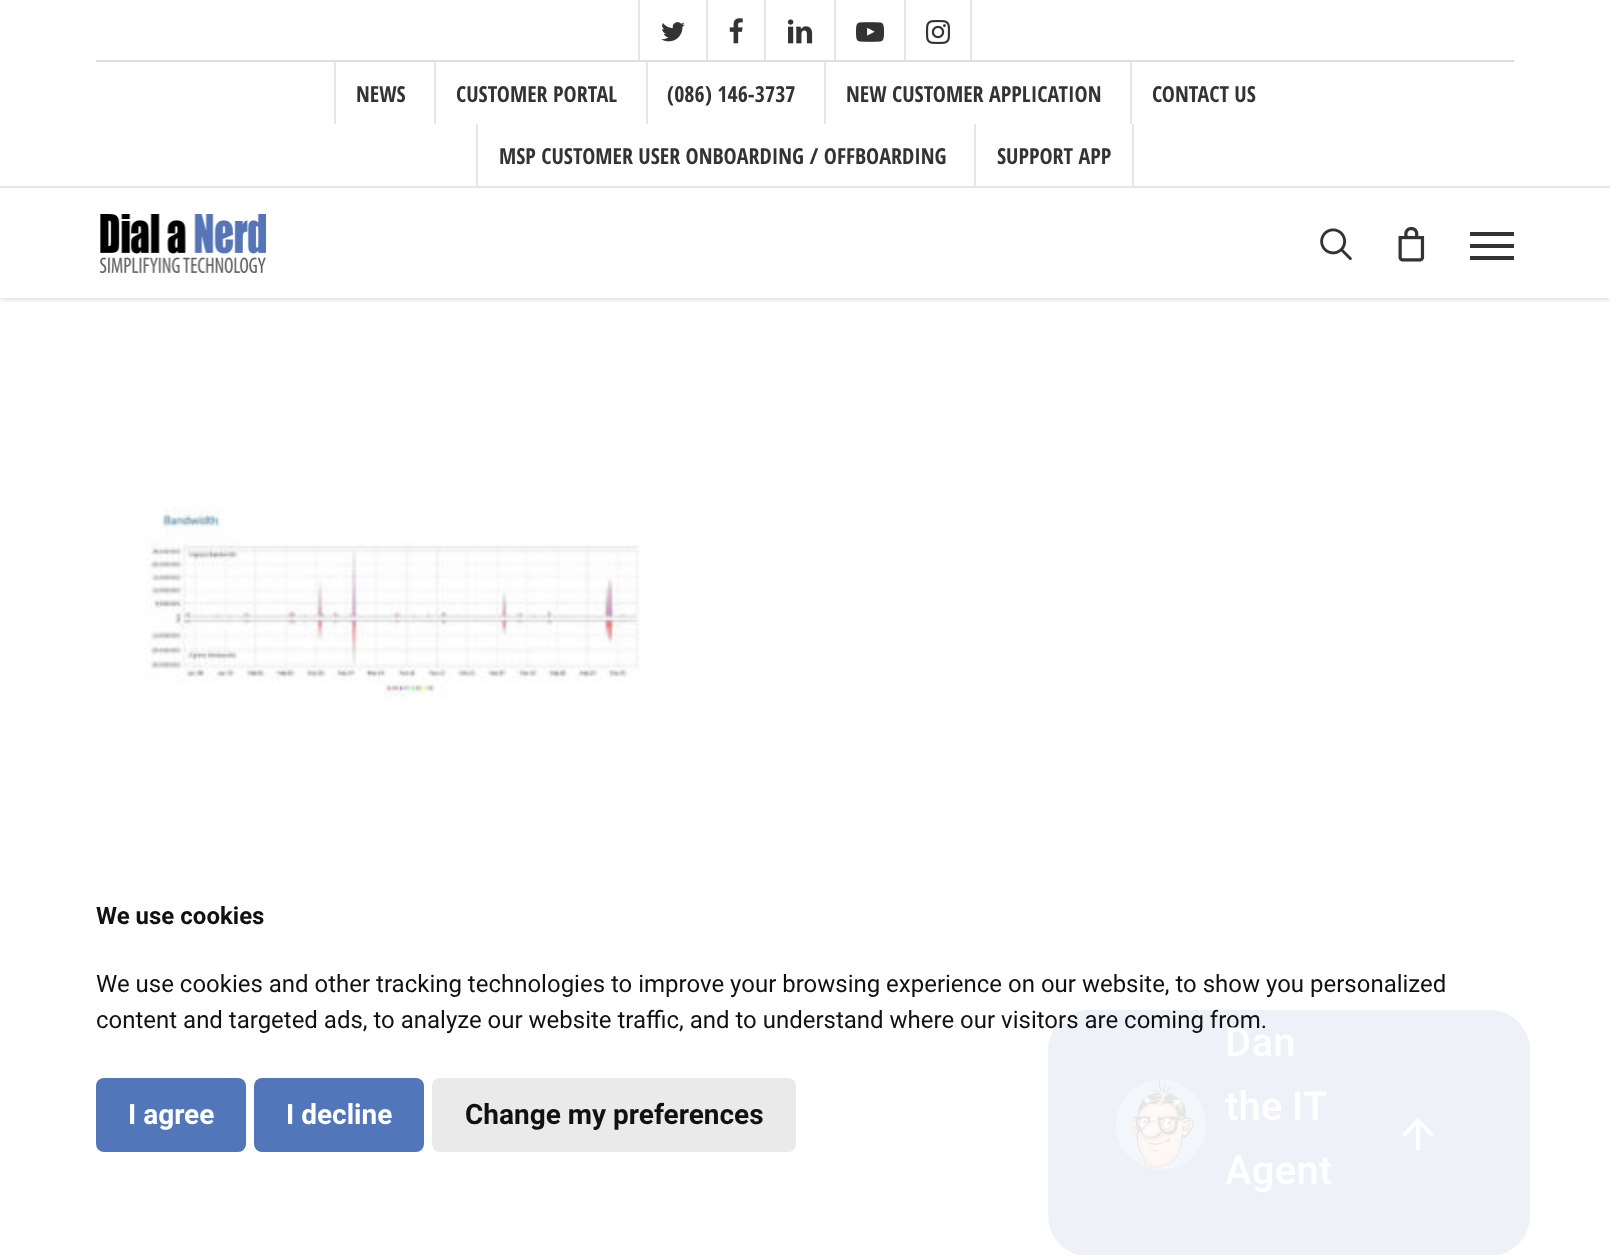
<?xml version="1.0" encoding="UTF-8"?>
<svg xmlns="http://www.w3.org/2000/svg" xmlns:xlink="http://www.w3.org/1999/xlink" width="1610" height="1255">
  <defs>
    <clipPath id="clip1"><rect x="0" y="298" width="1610" height="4" /></clipPath>
  </defs>
  <rect width="100%" height="100%" fill="#ffffff" />
  <g clip-path="url(#clip1)">
    <rect width="1610" height="298" fill="#000000" fill-opacity="0.22" filter="blur(3px)" />
  </g>
  <rect y="186" width="1610" height="2" fill="#e6e6e6" />
  <rect x="638" width="2" height="60" fill="#e6e6e6" />
  <image x="661" y="22" width="24" height="20" xlink:href="image1.png" />
  <rect x="706" width="2" height="60" fill="#e6e6e6" />
  <image x="729" y="18" width="14" height="26" xlink:href="image2.png" />
  <rect x="764" width="2" height="60" fill="#e6e6e6" />
  <image x="787" y="19" width="26" height="25" xlink:href="image3.png" />
  <rect x="834" width="2" height="60" fill="#e6e6e6" />
  <image x="856" y="22" width="28" height="20" xlink:href="image4.png" />
  <rect x="970" width="2" height="60" fill="#e6e6e6" />
  <rect x="904" width="2" height="60" fill="#e6e6e6" />
  <image x="926" y="20" width="24" height="24" xlink:href="image5.png" />
  <rect x="96" y="60" width="1418" height="2" fill="#dddddd" />
  <rect x="334" y="62" width="2" height="62" fill="#e6e6e6" />
  <rect x="434" y="62" width="2" height="62" fill="#e6e6e6" />
  <rect x="646" y="62" width="2" height="62" fill="#e6e6e6" />
  <rect x="824" y="62" width="2" height="62" fill="#e6e6e6" />
  <rect x="1130" y="62" width="2" height="62" fill="#e6e6e6" />
  <rect x="476" y="124" width="2" height="62" fill="#e6e6e6" />
  <rect x="1132" y="124" width="2" height="62" fill="#e6e6e6" />
  <rect x="974" y="124" width="2" height="62" fill="#e6e6e6" />
  <image x="100" y="214" width="166" height="59" xlink:href="image6.png" />
  <image x="1320" y="228" width="32" height="33" xlink:href="image7.png" />
  <image x="1398" y="226" width="27" height="36" xlink:href="image8.png" />
  <rect x="1470" y="232" width="44" height="4" fill="#333333" />
  <rect x="1470" y="256" width="44" height="4" fill="#333333" />
  <rect x="1470" y="244" width="44" height="4" fill="#333333" />
  <image x="145" y="506" width="495" height="192" xlink:href="image9.png" />
  <rect x="96" y="1078" width="150" height="74" rx="8" fill="#5276ba" />
  <rect x="254" y="1078" width="170" height="74" rx="8" fill="#5276ba" />
  <rect x="432" y="1078" width="364" height="74" rx="8" fill="#eaeaea" />
  <rect x="1048" y="1010" width="482" height="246" rx="40" fill="#eef1f8" />
  <image x="1116" y="1080" width="90" height="90" xlink:href="image10.png" />
  <path d="M 1402 1134 l 3 3 l 11 -11.5 v 24.5 h 4 v -24.5 l 11 11.5 l 3 -3 l -16 -16 z" fill="#ffffff" />
  <text x="356" y="102" style="font-family: Open Sans Condensed; font-size: 22px; font-weight: bold; fill: #333333">NEWS</text>
  <text x="456" y="102" style="font-family: Open Sans Condensed; font-size: 22px; font-weight: bold; fill: #333333">CUSTOMER PORTAL</text>
  <text x="667" y="102" style="font-family: Open Sans Condensed; font-size: 22px; font-weight: bold; fill: #333333">(086) 146-3737</text>
  <text x="846" y="102" style="font-family: Open Sans Condensed; font-size: 22px; font-weight: bold; fill: #333333">NEW CUSTOMER APPLICATION</text>
  <text x="1152" y="102" style="font-family: Open Sans Condensed; font-size: 22px; font-weight: bold; fill: #333333">CONTACT US</text>
  <text x="499" y="164" style="font-family: Open Sans Condensed; font-size: 22px; font-weight: bold; fill: #333333">MSP CUSTOMER USER ONBOARDING / OFFBOARDING</text>
  <text x="997" y="164" style="font-family: Open Sans Condensed; font-size: 22px; font-weight: bold; fill: #333333">SUPPORT APP</text>
  <text x="96" y="924" style="font-family: Roboto; font-size: 24px; font-weight: bold; fill: #111111">We use cookies</text>
  <text x="96" y="992" style="font-family: Roboto; font-size: 24px; fill: #111111">We use cookies and other tracking technologies to improve your browsing experience on our website, to show you personalized</text>
  <text x="96" y="1028" style="font-family: Roboto; font-size: 24px; fill: #111111">content and targeted ads, to analyze our website traffic, and to understand where our visitors are coming from.</text>
  <text x="128" y="1124" style="font-family: Roboto; font-size: 28px; font-weight: bold; fill: #ffffff">I agree</text>
  <text x="286" y="1124" style="font-family: Roboto; font-size: 28px; font-weight: bold; fill: #ffffff">I decline</text>
  <text x="465" y="1124" style="font-family: Roboto; font-size: 28px; font-weight: bold; fill: #111111">Change my preferences</text>
  <text x="1225" y="1056" style="font-family: Roboto; font-size: 40px; font-weight: 500; letter-spacing: 0.25px; fill: #ffffff">Dan</text>
  <text x="1225" y="1120" word-spacing="-1" style="font-family: Roboto; font-size: 40px; font-weight: 500; letter-spacing: 0.25px; fill: #ffffff">the IT</text>
  <text x="1225" y="1184" style="font-family: Roboto; font-size: 40px; font-weight: 500; letter-spacing: 0.25px; fill: #ffffff">Agent</text>
</svg>
